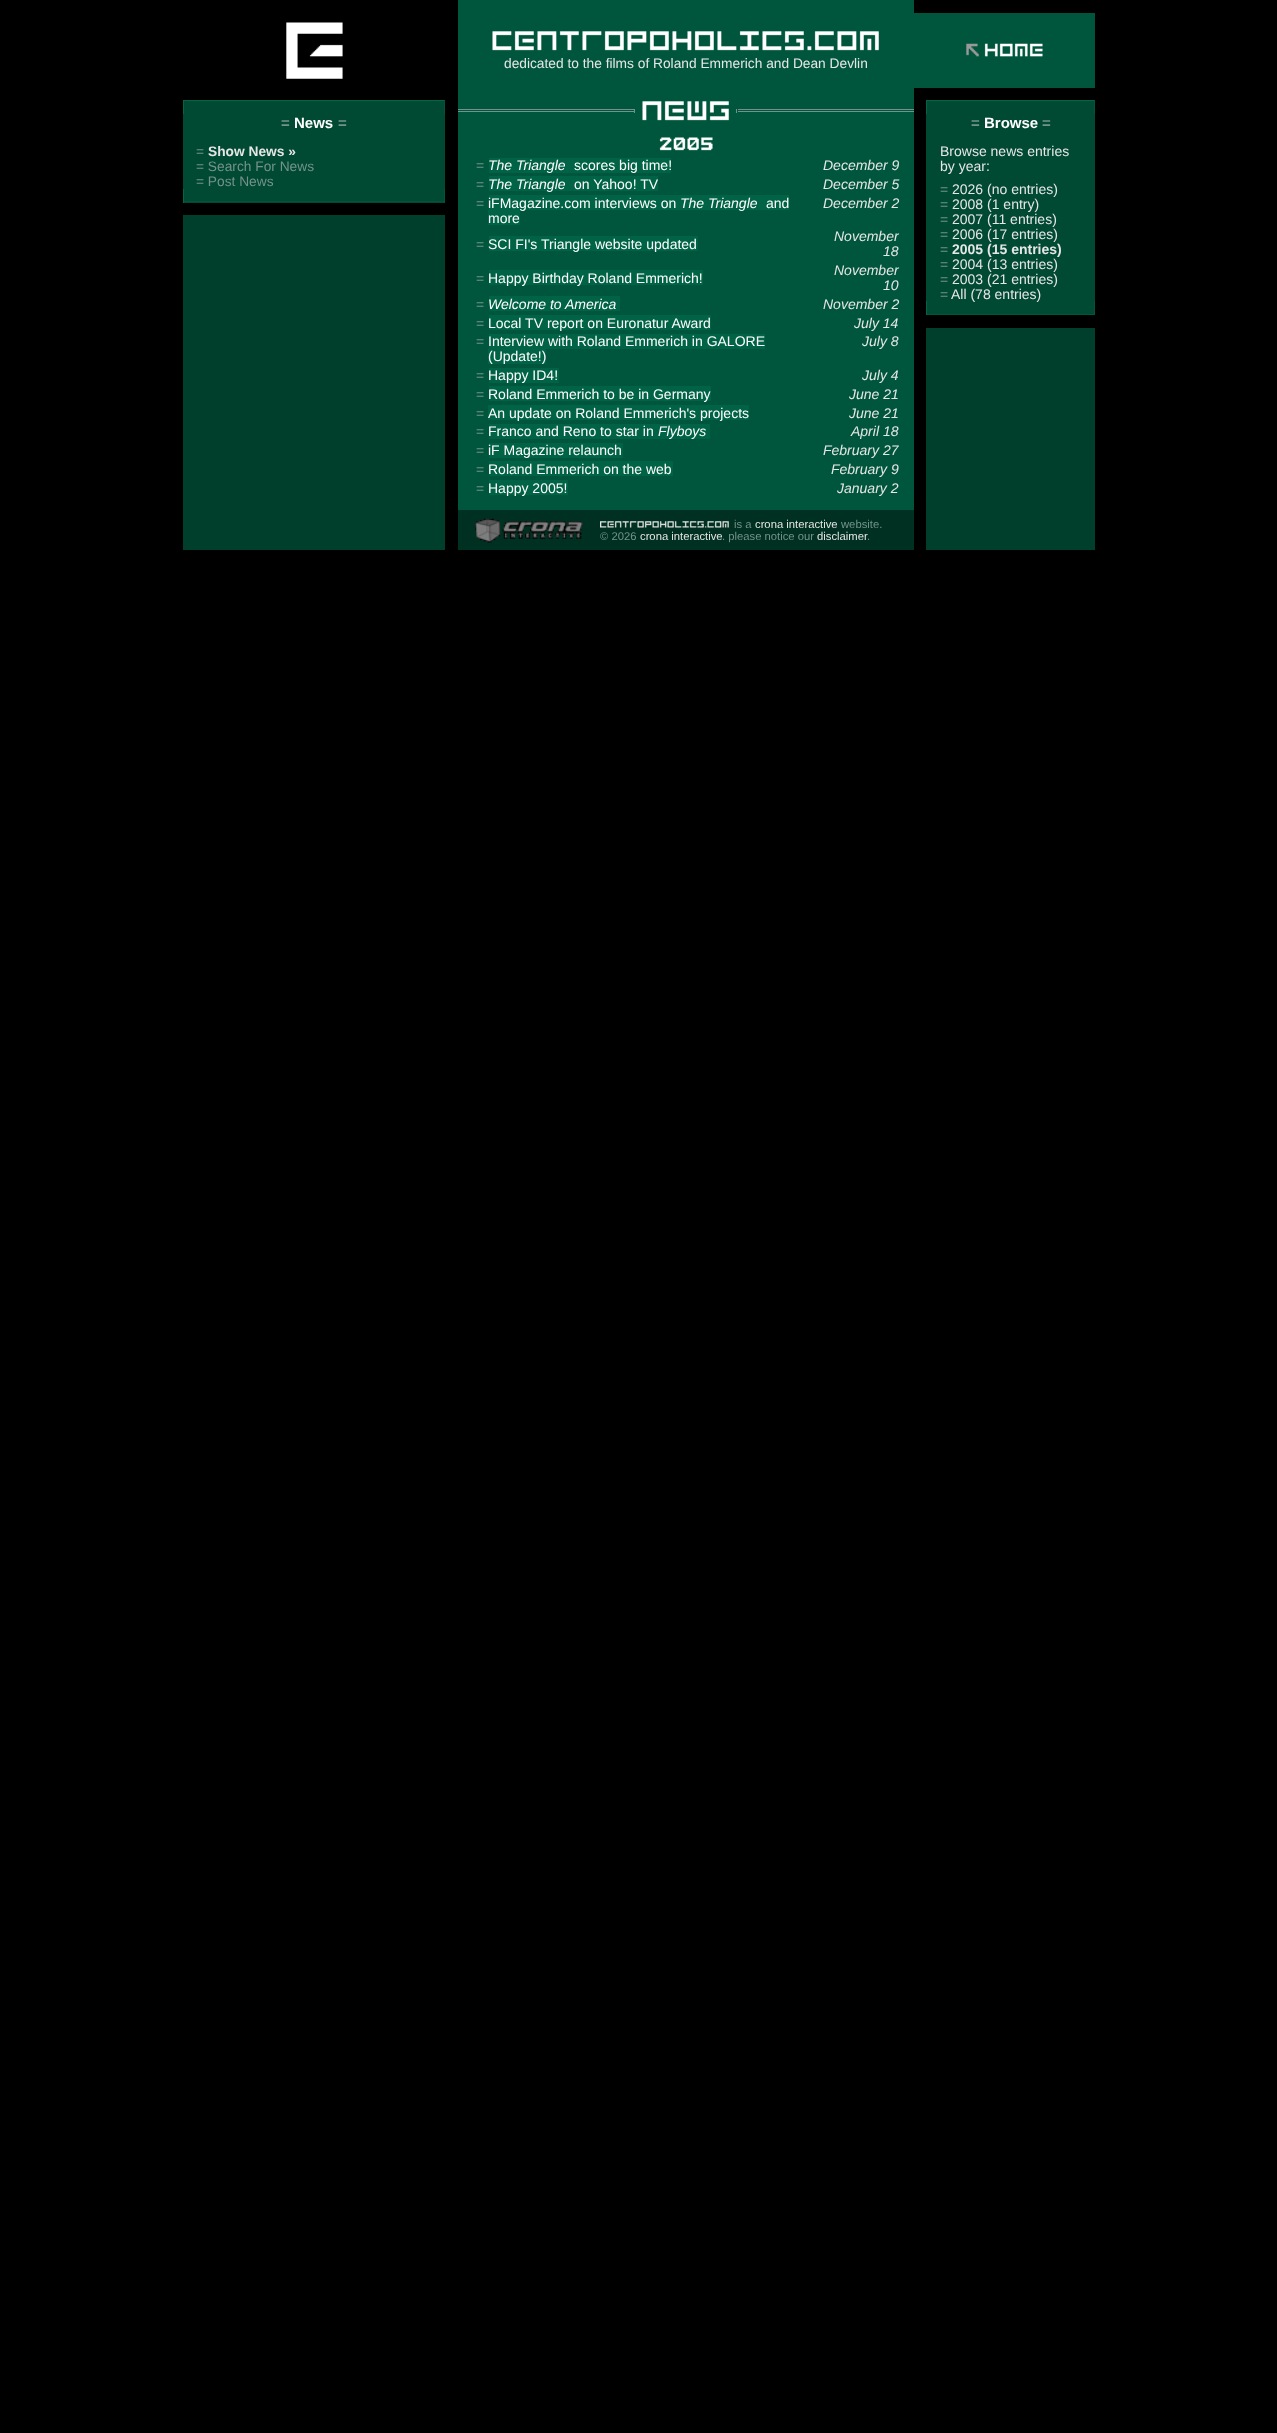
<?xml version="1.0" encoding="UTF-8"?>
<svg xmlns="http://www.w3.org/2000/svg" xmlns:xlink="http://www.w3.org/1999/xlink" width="1277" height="2433">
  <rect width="100%" height="100%" fill="#000000" />
  <rect x="458" width="456" height="510" fill="#00563c" />
  <image x="286" y="22" width="57" height="57" xlink:href="image1.png" />
  <rect x="914" y="13" width="181" height="75" fill="#00563c" />
  <image x="966" y="43" width="77" height="14" xlink:href="image2.png" />
  <image x="492" y="31" width="387" height="20" xlink:href="image3.png" />
  <rect x="183" y="215" width="262" height="335" fill="#003f2c" />
  <rect x="183" y="101" width="262" height="102" fill="#004933" />
  <rect x="183" y="100" width="262" height="1" fill="#006647" />
  <rect x="183" y="100" width="1" height="14" fill="#006647" />
  <rect x="444" y="100" width="1" height="14" fill="#00563c" />
  <rect x="444" y="189" width="1" height="14" fill="#00563c" />
  <rect x="183" y="201" width="262" height="1" fill="#00563c" />
  <rect x="183" y="189" width="1" height="14" fill="#006647" />
  <image x="642" y="101" width="87" height="20" xlink:href="image4.png" />
  <rect x="458" y="109" width="176" height="1" fill="#73938a" />
  <rect x="634" y="109" width="1" height="4" fill="#73938a" />
  <rect x="736" y="109" width="1" height="4" fill="#73938a" />
  <rect x="738" y="109" width="176" height="1" fill="#73938a" />
  <rect x="458" y="111" width="176" height="1" fill="#73938a" />
  <rect x="738" y="111" width="176" height="1" fill="#73938a" />
  <image x="659" y="137" width="54" height="14" xlink:href="image5.png" />
  <rect x="489" y="158" width="182" height="15" fill="#006345" />
  <rect x="489" y="176" width="169" height="15" fill="#006345" />
  <rect x="489" y="195" width="300" height="15" fill="#006345" />
  <rect x="488" y="210" width="32" height="15" fill="#006345" />
  <rect x="489" y="236" width="209" height="15" fill="#006345" />
  <rect x="489" y="270" width="214" height="15" fill="#006345" />
  <rect x="489" y="296" width="131" height="15" fill="#006345" />
  <rect x="489" y="315" width="222" height="15" fill="#006345" />
  <rect x="489" y="334" width="276" height="15" fill="#006345" />
  <rect x="488" y="349" width="58" height="15" fill="#006345" />
  <rect x="489" y="368" width="70" height="15" fill="#006345" />
  <rect x="489" y="386" width="222" height="15" fill="#006345" />
  <rect x="488" y="405" width="261" height="15" fill="#006345" />
  <rect x="489" y="424" width="221" height="15" fill="#006345" />
  <rect x="489" y="443" width="134" height="15" fill="#006345" />
  <rect x="489" y="461" width="184" height="15" fill="#006345" />
  <rect x="489" y="480" width="79" height="15" fill="#006345" />
  <rect x="926" y="328" width="169" height="222" fill="#003f2c" />
  <rect x="926" y="101" width="169" height="213" fill="#004933" />
  <rect x="926" y="100" width="169" height="1" fill="#006647" />
  <rect x="926" y="100" width="1" height="14" fill="#006647" />
  <rect x="1094" y="100" width="1" height="14" fill="#00563c" />
  <rect x="1094" y="301" width="1" height="14" fill="#00563c" />
  <rect x="926" y="314" width="169" height="1" fill="#00563c" />
  <rect x="926" y="301" width="1" height="14" fill="#006647" />
  <rect x="458" y="510" width="456" height="40" fill="#003021" />
  <image x="475" y="518" width="108" height="25" xlink:href="image6.png" />
  <image x="600" y="521" width="129" height="7" xlink:href="image7.png" />
  <text x="504" y="68" style="font-family: Liberation Sans; font-size: 13.75px; fill: #e6e6e6">dedicated to the films of Roland Emmerich and Dean Devlin</text>
  <text x="281" y="128" style="font-family: Liberation Sans; font-size: 15px; font-weight: bold; fill: #73938a">=</text>
  <text x="294" y="128" style="font-family: Liberation Sans; font-size: 15px; font-weight: bold; fill: #ffffff">News</text>
  <text x="338" y="128" style="font-family: Liberation Sans; font-size: 15px; font-weight: bold; fill: #73938a">=</text>
  <text x="196" y="156" style="font-family: Liberation Sans; font-size: 13.75px; fill: #73938a">=</text>
  <text x="208" y="156" style="font-family: Liberation Sans; font-size: 13.75px; font-weight: bold; fill: #e6e6e6">Show News »</text>
  <text x="196" y="171" style="font-family: Liberation Sans; font-size: 13.75px; fill: #73938a">= Search For News</text>
  <text x="196" y="186" style="font-family: Liberation Sans; font-size: 13.75px; fill: #73938a">= Post News</text>
  <text x="476" y="170" style="font-family: Liberation Sans; font-size: 14px; fill: #73938a">=</text>
  <text x="488" y="170" style="font-family: Liberation Sans; font-size: 14px; font-style: italic; fill: #ffffff">The Triangle</text>
  <text x="574" y="170" style="font-family: Liberation Sans; font-size: 14px; fill: #ffffff">scores big time!</text>
  <text x="823" y="170" style="font-family: Liberation Sans; font-size: 14px; font-style: italic; fill: #e6e6e6">December 9</text>
  <text x="476" y="189" style="font-family: Liberation Sans; font-size: 14px; fill: #73938a">=</text>
  <text x="488" y="189" style="font-family: Liberation Sans; font-size: 14px; font-style: italic; fill: #ffffff">The Triangle</text>
  <text x="574" y="189" style="font-family: Liberation Sans; font-size: 14px; fill: #ffffff">on Yahoo! TV</text>
  <text x="823" y="189" style="font-family: Liberation Sans; font-size: 14px; font-style: italic; fill: #e6e6e6">December 5</text>
  <text x="476" y="208" style="font-family: Liberation Sans; font-size: 14px; fill: #73938a">=</text>
  <text x="488" y="208" style="font-family: Liberation Sans; font-size: 14px; fill: #ffffff">iFMagazine.com interviews on</text>
  <text x="680" y="208" style="font-family: Liberation Sans; font-size: 14px; font-style: italic; fill: #ffffff">The Triangle</text>
  <text x="766" y="208" style="font-family: Liberation Sans; font-size: 14px; fill: #ffffff">and</text>
  <text x="488" y="223" style="font-family: Liberation Sans; font-size: 14px; fill: #ffffff">more</text>
  <text x="823" y="208" style="font-family: Liberation Sans; font-size: 14px; font-style: italic; fill: #e6e6e6">December 2</text>
  <text x="476" y="249" style="font-family: Liberation Sans; font-size: 14px; fill: #73938a">=</text>
  <text x="488" y="249" style="font-family: Liberation Sans; font-size: 14px; fill: #ffffff">SCI FI's Triangle website updated</text>
  <text x="834" y="241" style="font-family: Liberation Sans; font-size: 14px; font-style: italic; fill: #e6e6e6">November</text>
  <text x="883" y="256" style="font-family: Liberation Sans; font-size: 14px; font-style: italic; fill: #e6e6e6">18</text>
  <text x="476" y="283" style="font-family: Liberation Sans; font-size: 14px; fill: #73938a">=</text>
  <text x="488" y="283" style="font-family: Liberation Sans; font-size: 14px; fill: #ffffff">Happy Birthday Roland Emmerich!</text>
  <text x="834" y="275" style="font-family: Liberation Sans; font-size: 14px; font-style: italic; fill: #e6e6e6">November</text>
  <text x="883" y="290" style="font-family: Liberation Sans; font-size: 14px; font-style: italic; fill: #e6e6e6">10</text>
  <text x="476" y="309" style="font-family: Liberation Sans; font-size: 14px; fill: #73938a">=</text>
  <text x="488" y="309" style="font-family: Liberation Sans; font-size: 14px; font-style: italic; fill: #ffffff">Welcome to America</text>
  <text x="823" y="309" style="font-family: Liberation Sans; font-size: 14px; font-style: italic; fill: #e6e6e6">November 2</text>
  <text x="476" y="328" style="font-family: Liberation Sans; font-size: 14px; fill: #73938a">=</text>
  <text x="488" y="328" style="font-family: Liberation Sans; font-size: 14px; fill: #ffffff">Local TV report on Euronatur Award</text>
  <text x="854" y="328" style="font-family: Liberation Sans; font-size: 14px; font-style: italic; fill: #e6e6e6">July 14</text>
  <text x="476" y="346" style="font-family: Liberation Sans; font-size: 14px; fill: #73938a">=</text>
  <text x="488" y="346" style="font-family: Liberation Sans; font-size: 14px; fill: #ffffff">Interview with Roland Emmerich in GALORE</text>
  <text x="488" y="361" style="font-family: Liberation Sans; font-size: 14px; fill: #ffffff">(Update!)</text>
  <text x="862" y="346" style="font-family: Liberation Sans; font-size: 14px; font-style: italic; fill: #e6e6e6">July 8</text>
  <text x="476" y="380" style="font-family: Liberation Sans; font-size: 14px; fill: #73938a">=</text>
  <text x="488" y="380" style="font-family: Liberation Sans; font-size: 14px; fill: #ffffff">Happy ID4!</text>
  <text x="862" y="380" style="font-family: Liberation Sans; font-size: 14px; font-style: italic; fill: #e6e6e6">July 4</text>
  <text x="476" y="399" style="font-family: Liberation Sans; font-size: 14px; fill: #73938a">=</text>
  <text x="488" y="399" style="font-family: Liberation Sans; font-size: 14px; fill: #ffffff">Roland Emmerich to be in Germany</text>
  <text x="849" y="399" style="font-family: Liberation Sans; font-size: 14px; font-style: italic; fill: #e6e6e6">June 21</text>
  <text x="476" y="418" style="font-family: Liberation Sans; font-size: 14px; fill: #73938a">=</text>
  <text x="488" y="418" style="font-family: Liberation Sans; font-size: 14px; fill: #ffffff">An update on Roland Emmerich's projects</text>
  <text x="849" y="418" style="font-family: Liberation Sans; font-size: 14px; font-style: italic; fill: #e6e6e6">June 21</text>
  <text x="476" y="436" style="font-family: Liberation Sans; font-size: 14px; fill: #73938a">=</text>
  <text x="488" y="436" style="font-family: Liberation Sans; font-size: 14px; fill: #ffffff">Franco and Reno to star in</text>
  <text x="658" y="436" style="font-family: Liberation Sans; font-size: 14px; font-style: italic; fill: #ffffff">Flyboys</text>
  <text x="851" y="436" style="font-family: Liberation Sans; font-size: 14px; font-style: italic; fill: #e6e6e6">April 18</text>
  <text x="476" y="455" style="font-family: Liberation Sans; font-size: 14px; fill: #73938a">=</text>
  <text x="488" y="455" style="font-family: Liberation Sans; font-size: 14px; fill: #ffffff">iF Magazine relaunch</text>
  <text x="823" y="455" style="font-family: Liberation Sans; font-size: 14px; font-style: italic; fill: #e6e6e6">February 27</text>
  <text x="476" y="474" style="font-family: Liberation Sans; font-size: 14px; fill: #73938a">=</text>
  <text x="488" y="474" style="font-family: Liberation Sans; font-size: 14px; fill: #ffffff">Roland Emmerich on the web</text>
  <text x="831" y="474" style="font-family: Liberation Sans; font-size: 14px; font-style: italic; fill: #e6e6e6">February 9</text>
  <text x="476" y="493" style="font-family: Liberation Sans; font-size: 14px; fill: #73938a">=</text>
  <text x="488" y="493" style="font-family: Liberation Sans; font-size: 14px; fill: #ffffff">Happy 2005!</text>
  <text x="837" y="493" style="font-family: Liberation Sans; font-size: 14px; font-style: italic; fill: #e6e6e6">January 2</text>
  <text x="971" y="128" style="font-family: Liberation Sans; font-size: 15px; font-weight: bold; fill: #73938a">=</text>
  <text x="984" y="128" style="font-family: Liberation Sans; font-size: 15px; font-weight: bold; fill: #ffffff">Browse</text>
  <text x="1042" y="128" style="font-family: Liberation Sans; font-size: 15px; font-weight: bold; fill: #73938a">=</text>
  <text x="940" y="156" style="font-family: Liberation Sans; font-size: 14px; fill: #e6e6e6">Browse news entries</text>
  <text x="940" y="171" style="font-family: Liberation Sans; font-size: 14px; fill: #e6e6e6">by year:</text>
  <text x="940" y="194" style="font-family: Liberation Sans; font-size: 14px; fill: #73938a">=</text>
  <text x="952" y="194" style="font-family: Liberation Sans; font-size: 14px; fill: #e6e6e6">2026 (no entries)</text>
  <text x="940" y="209" style="font-family: Liberation Sans; font-size: 14px; fill: #73938a">=</text>
  <text x="952" y="209" style="font-family: Liberation Sans; font-size: 14px; fill: #e6e6e6">2008 (1 entry)</text>
  <text x="940" y="224" style="font-family: Liberation Sans; font-size: 14px; fill: #73938a">=</text>
  <text x="952" y="224" style="font-family: Liberation Sans; font-size: 14px; fill: #e6e6e6">2007 (11 entries)</text>
  <text x="940" y="239" style="font-family: Liberation Sans; font-size: 14px; fill: #73938a">=</text>
  <text x="952" y="239" style="font-family: Liberation Sans; font-size: 14px; fill: #e6e6e6">2006 (17 entries)</text>
  <text x="940" y="254" style="font-family: Liberation Sans; font-size: 14px; fill: #73938a">=</text>
  <text x="952" y="254" style="font-family: Liberation Sans; font-size: 14px; font-weight: bold; fill: #e6e6e6">2005 (15 entries)</text>
  <text x="940" y="269" style="font-family: Liberation Sans; font-size: 14px; fill: #73938a">=</text>
  <text x="952" y="269" style="font-family: Liberation Sans; font-size: 14px; fill: #e6e6e6">2004 (13 entries)</text>
  <text x="940" y="284" style="font-family: Liberation Sans; font-size: 14px; fill: #73938a">=</text>
  <text x="952" y="284" style="font-family: Liberation Sans; font-size: 14px; fill: #e6e6e6">2003 (21 entries)</text>
  <text x="940" y="299" style="font-family: Liberation Sans; font-size: 14px; fill: #73938a">=</text>
  <text x="951" y="299" style="font-family: Liberation Sans; font-size: 14px; fill: #e6e6e6">All (78 entries)</text>
  <text x="734" y="528" style="font-family: Liberation Sans; font-size: 11.25px; fill: #73938a">is a</text>
  <text x="755" y="528" style="font-family: Liberation Sans; font-size: 11.25px; fill: #e6e6e6">crona interactive</text>
  <text x="841" y="528" style="font-family: Liberation Sans; font-size: 11.25px; fill: #73938a">website.</text>
  <text x="600" y="540" style="font-family: Liberation Sans; font-size: 11.25px; fill: #73938a">© 2026</text>
  <text x="640" y="540" style="font-family: Liberation Sans; font-size: 11.25px; fill: #e6e6e6">crona interactive</text>
  <text x="722" y="540" style="font-family: Liberation Sans; font-size: 11.25px; fill: #73938a">. please notice our</text>
  <text x="817" y="540" style="font-family: Liberation Sans; font-size: 11.25px; fill: #e6e6e6">disclaimer</text>
  <text x="867" y="540" style="font-family: Liberation Sans; font-size: 11.25px; fill: #73938a">.</text>
</svg>
